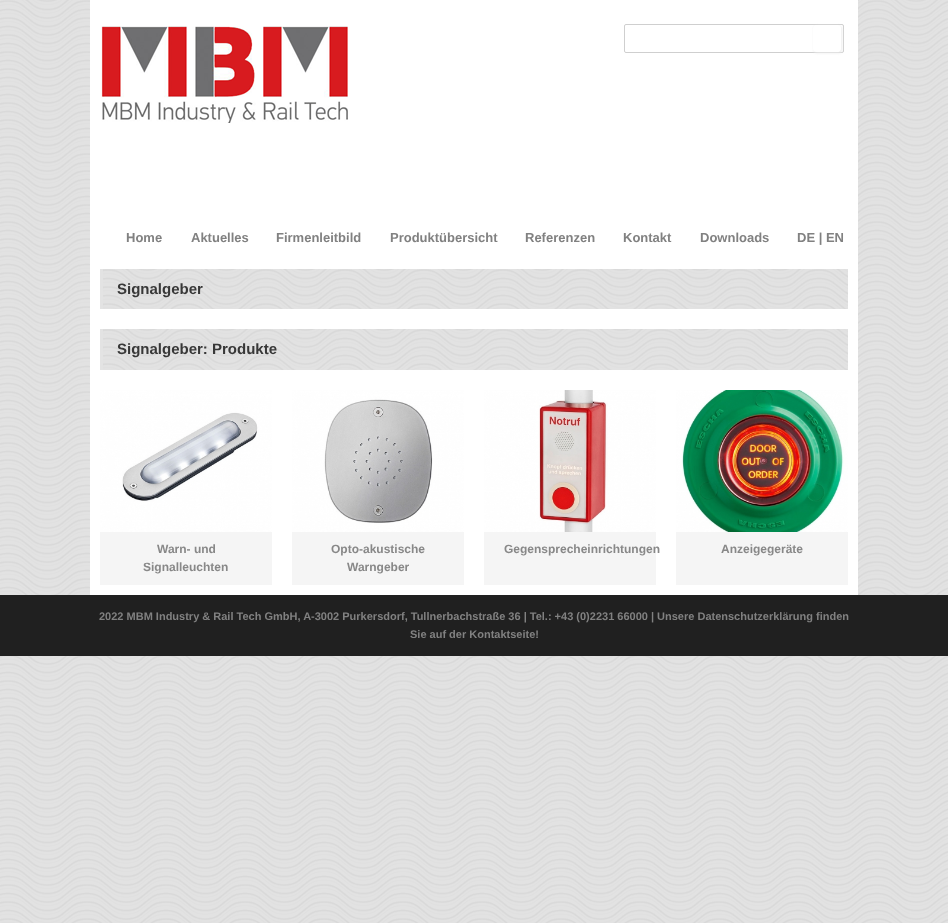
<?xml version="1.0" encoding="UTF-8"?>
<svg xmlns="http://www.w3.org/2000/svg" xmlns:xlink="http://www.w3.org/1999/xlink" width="948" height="923">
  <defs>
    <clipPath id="clip1"><path d="M 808 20 h 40 v 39 h -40 z m 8 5 h 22 c 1.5 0 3 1.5 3 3 v 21 c 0 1.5 -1.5 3 -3 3 h -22 c -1.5 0 -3 -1.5 -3 -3 v -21 c 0 -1.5 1.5 -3 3 -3 z" clip-rule="evenodd" /></clipPath>
  </defs>
  <rect width="100%" height="100%" fill="#ffffff" />
  <image x="0" y="0" width="948" height="923" xlink:href="image1.png" />
  <rect x="90" width="768" height="595" fill="#ffffff" />
  <image x="101" y="26" width="247" height="97" xlink:href="image2.png" />
  <rect x="624.5" y="24.5" width="219" height="28" rx="1.5" fill="none" stroke="#cfcfcf" />
  <g clip-path="url(#clip1)">
    <rect x="814" y="26" width="28" height="27" rx="3" fill="#ececec" filter="blur(1.5px)" />
  </g>
  <image x="103" y="269" width="745" height="40" xlink:href="image3.png" />
  <rect x="100" y="269" width="3" height="40" fill="#e3e3e3" />
  <image x="103" y="329" width="745" height="41" xlink:href="image4.png" />
  <rect x="100" y="329" width="3" height="41" fill="#e3e3e3" />
  <rect x="100" y="532" width="172" height="53" fill="#f5f5f5" />
  <image x="100" y="390" width="172" height="142" xlink:href="image5.png" />
  <rect x="292" y="532" width="172" height="53" fill="#f5f5f5" />
  <image x="292" y="390" width="172" height="142" xlink:href="image6.png" />
  <rect x="484" y="532" width="172" height="53" fill="#f5f5f5" />
  <image x="484" y="390" width="172" height="142" xlink:href="image7.png" />
  <rect x="676" y="532" width="172" height="53" fill="#f5f5f5" />
  <image x="676" y="390" width="172" height="142" xlink:href="image8.png" />
  <rect y="595" width="948" height="61" fill="#202020" />
  <text x="126" y="242" style="font-family: Liberation Sans; font-size: 13px; font-weight: bold; fill: #818181">Home</text>
  <text x="191" y="242" style="font-family: Liberation Sans; font-size: 13px; font-weight: bold; fill: #818181">Aktuelles</text>
  <text x="276" y="242" style="font-family: Liberation Sans; font-size: 13px; font-weight: bold; fill: #818181">Firmenleitbild</text>
  <text x="390" y="242" style="font-family: Liberation Sans; font-size: 13px; font-weight: bold; fill: #818181">Produktübersicht</text>
  <text x="525" y="242" style="font-family: Liberation Sans; font-size: 13px; font-weight: bold; fill: #818181">Referenzen</text>
  <text x="623" y="242" style="font-family: Liberation Sans; font-size: 13px; font-weight: bold; fill: #818181">Kontakt</text>
  <text x="700" y="242" style="font-family: Liberation Sans; font-size: 13px; font-weight: bold; fill: #818181">Downloads</text>
  <text x="797" y="242" style="font-family: Liberation Sans; font-size: 13px; font-weight: bold; fill: #818181">DE | EN</text>
  <text x="117" y="294" style="font-family: Liberation Sans; font-size: 15px; font-weight: bold; fill: #383838">Signalgeber</text>
  <text x="117" y="354" style="font-family: Liberation Sans; font-size: 15px; font-weight: bold; fill: #383838">Signalgeber: Produkte</text>
  <text x="157" y="553" style="font-family: Liberation Sans; font-size: 12px; font-weight: bold; fill: #888888">Warn- und</text>
  <text x="143" y="571" style="font-family: Liberation Sans; font-size: 12px; font-weight: bold; fill: #888888">Signalleuchten</text>
  <text x="331" y="553" style="font-family: Liberation Sans; font-size: 12px; font-weight: bold; fill: #888888">Opto-akustische</text>
  <text x="347" y="571" style="font-family: Liberation Sans; font-size: 12px; font-weight: bold; fill: #888888">Warngeber</text>
  <text x="504" y="553" style="font-family: Liberation Sans; font-size: 12px; font-weight: bold; fill: #888888">Gegensprecheinrichtungen</text>
  <text x="721" y="553" style="font-family: Liberation Sans; font-size: 12px; font-weight: bold; fill: #888888">Anzeigegeräte</text>
  <text x="99" y="620" style="font-family: Liberation Sans; font-size: 11px; font-weight: bold; fill: #818181">2022 MBM Industry &amp; Rail Tech GmbH, A-3002 Purkersdorf, Tullnerbachstraße 36 | Tel.: +43 (0)2231 66000 | Unsere Datenschutzerklärung finden</text>
  <text x="410" y="638" style="font-family: Liberation Sans; font-size: 11px; font-weight: bold; fill: #818181">Sie auf der Kontaktseite!</text>
</svg>
